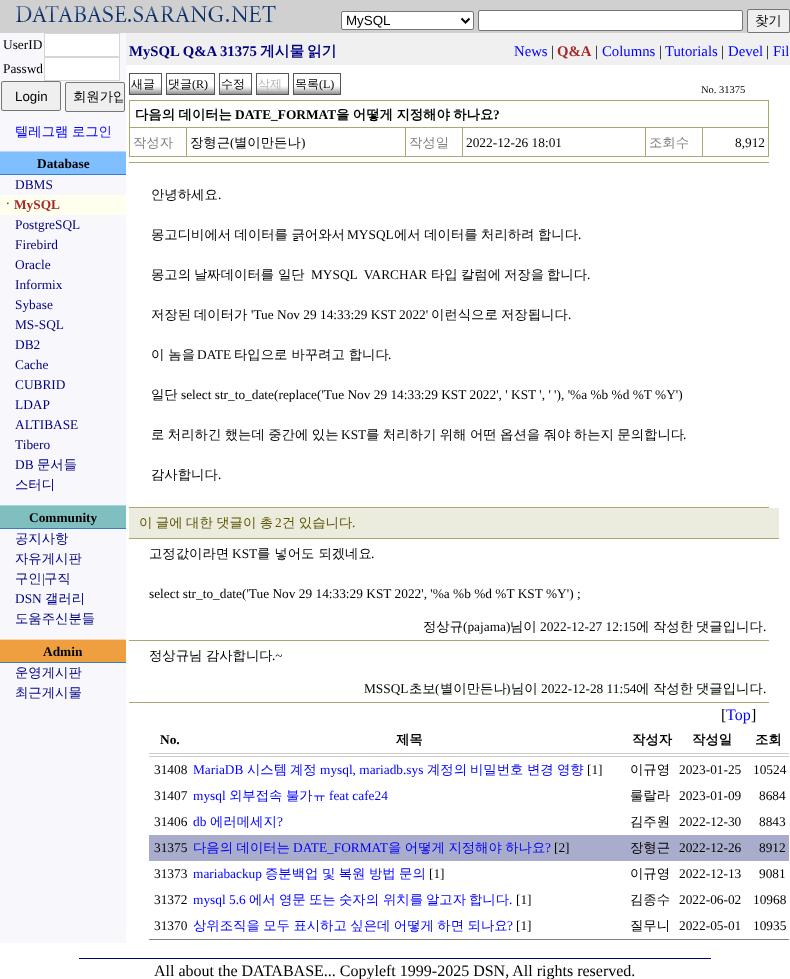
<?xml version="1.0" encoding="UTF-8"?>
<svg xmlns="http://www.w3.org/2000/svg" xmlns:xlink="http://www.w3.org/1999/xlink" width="790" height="979">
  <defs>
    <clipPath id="clip1"><rect x="67" y="84" width="56" height="26" /></clipPath>
  </defs>
  <rect width="100%" height="100%" fill="#ffffff" />
  <rect width="790" height="33" fill="#d0d0d0" />
  <image x="16" y="3" width="260" height="21" xlink:href="image1.png" />
  <rect x="341.5" y="11.5" width="132" height="18" rx="1.5" fill="#ffffff" stroke="#767676" />
  <path d="M 461.5 18.5 l 4 4 l 4 -4" fill="none" stroke="#000000" stroke-width="2" />
  <rect x="478.5" y="10.5" width="264" height="20" rx="1.5" fill="#ffffff" stroke="#767676" />
  <rect x="747.5" y="9.5" width="42" height="23" rx="1.5" fill="#efefef" stroke="#767676" />
  <rect y="33" width="126" height="910" fill="#f7f7fc" />
  <rect x="44.5" y="33.5" width="75" height="23" fill="#ffffff" stroke="#d6d6d6" />
  <rect x="44.5" y="57.5" width="75" height="23" fill="#ffffff" stroke="#d6d6d6" />
  <rect x="1.5" y="81.5" width="59" height="29" rx="1.5" fill="#efefef" stroke="#767676" />
  <rect x="65.5" y="82.5" width="59" height="29" rx="1.5" fill="#efefef" stroke="#767676" />
  <rect y="152" width="126" height="22" fill="#80bfff" />
  <rect y="151" width="126" height="1" fill="#bbd7fc" />
  <rect y="174" width="126" height="1" fill="#377dc5" />
  <rect y="195" width="126" height="20" fill="#ffffee" />
  <rect y="506" width="126" height="22" fill="#7fbfc0" />
  <rect y="505" width="126" height="1" fill="#a5d8dd" />
  <rect y="528" width="126" height="1" fill="#377dc5" />
  <rect y="640" width="126" height="22" fill="#ef9f3f" />
  <rect y="639" width="126" height="1" fill="#f8d6ae" />
  <rect y="662" width="126" height="1" fill="#377dc5" />
  <rect x="126" y="33" width="664" height="32" fill="#f0f0f0" />
  <image x="130" y="74" width="31" height="20" xlink:href="image2.png" />
  <rect x="129.5" y="73.5" width="32" height="21" fill="none" stroke="#555555" />
  <image x="167" y="74" width="47" height="20" xlink:href="image3.png" />
  <rect x="166.5" y="73.5" width="48" height="21" fill="none" stroke="#555555" />
  <image x="220" y="74" width="31" height="20" xlink:href="image2.png" />
  <rect x="219.5" y="73.5" width="32" height="21" fill="none" stroke="#555555" />
  <image x="257" y="74" width="31" height="20" xlink:href="image2.png" />
  <rect x="256.5" y="73.5" width="32" height="21" fill="none" stroke="#555555" />
  <image x="294" y="74" width="46" height="20" xlink:href="image4.png" />
  <rect x="293.5" y="73.5" width="47" height="21" fill="none" stroke="#555555" />
  <rect x="129" y="100" width="640" height="1" fill="#aca673" />
  <rect x="129" y="100" width="1" height="57" fill="#aca673" />
  <rect x="768" y="101" width="1" height="56" fill="#aca673" />
  <rect x="130" y="127" width="639" height="1" fill="#aca673" />
  <rect x="186" y="128" width="1" height="29" fill="#aca673" />
  <rect x="130" y="156" width="57" height="1" fill="#aca673" />
  <rect x="405" y="128" width="1" height="29" fill="#aca673" />
  <rect x="187" y="156" width="219" height="1" fill="#aca673" />
  <rect x="462" y="128" width="1" height="29" fill="#aca673" />
  <rect x="406" y="156" width="57" height="1" fill="#aca673" />
  <rect x="645" y="128" width="1" height="29" fill="#aca673" />
  <rect x="463" y="156" width="183" height="1" fill="#aca673" />
  <rect x="702" y="128" width="1" height="29" fill="#aca673" />
  <rect x="646" y="156" width="123" height="1" fill="#aca673" />
  <rect x="129" y="162" width="640" height="1" fill="#aca673" />
  <rect x="129" y="507" width="640" height="1" fill="#aca673" />
  <rect x="129" y="508" width="650" height="30" fill="#ebebde" />
  <rect x="129" y="538" width="650" height="1" fill="#aca673" />
  <rect x="129" y="640" width="640" height="1" fill="#aca673" />
  <rect x="129" y="702" width="640" height="1" fill="#aca673" />
  <rect x="149" y="939" width="640" height="1" fill="#808080" />
  <rect x="149" y="753" width="640" height="1" fill="#cccccc" />
  <rect x="149" y="756" width="640" height="1" fill="#cccccc" />
  <rect x="149" y="835" width="640" height="26" fill="#aaaccb" />
  <rect x="79" y="958" width="632" height="1" fill="#000080" />
  <text x="346" y="25" style="font-family: Liberation Sans; font-size: 13.35px; fill: #000000">MySQL</text>
  <text x="755" y="25" style="font-family: WenQuanYi Zen Hei; font-size: 13.35px; font-weight: 500; fill: #000000">찾기</text>
  <text x="3" y="49" style="font-family: Liberation Serif; font-size: 13.35px; fill: #000000">UserID</text>
  <text x="3" y="73" style="font-family: Liberation Serif; font-size: 13.35px; fill: #000000">Passwd</text>
  <text x="15" y="101" style="font-family: Liberation Sans; font-size: 13.35px; fill: #000000">Login</text>
  <g clip-path="url(#clip1)">
    <text x="73" y="101" style="font-family: WenQuanYi Zen Hei; font-size: 13.35px; font-weight: 500; fill: #000000">회원가입</text>
  </g>
  <text x="15" y="136" word-spacing="-0.5" style="font-family: WenQuanYi Zen Hei; font-size: 13.35px; font-weight: 500; fill: #0000ff">텔레그램 로그인</text>
  <text x="37" y="168" style="font-family: Liberation Serif; font-size: 13.35px; font-weight: bold; fill: #000000">Database</text>
  <text x="15" y="189" style="font-family: Liberation Serif; font-size: 13.35px; fill: #000080">DBMS</text>
  <text x="1" y="209" style="font-family: WenQuanYi Zen Hei; font-size: 13.35px; font-weight: bold; fill: #a52a2a">ㆍ</text>
  <text x="14" y="209" style="font-family: Liberation Serif; font-size: 13.35px; font-weight: bold; fill: #a52a2a">MySQL</text>
  <text x="15" y="229" style="font-family: Liberation Serif; font-size: 13.35px; fill: #000080">PostgreSQL</text>
  <text x="15" y="249" style="font-family: Liberation Serif; font-size: 13.35px; fill: #000080">Firebird</text>
  <text x="15" y="269" style="font-family: Liberation Serif; font-size: 13.35px; fill: #000080">Oracle</text>
  <text x="15" y="289" style="font-family: Liberation Serif; font-size: 13.35px; fill: #000080">Informix</text>
  <text x="15" y="309" style="font-family: Liberation Serif; font-size: 13.35px; fill: #000080">Sybase</text>
  <text x="15" y="329" style="font-family: Liberation Serif; font-size: 13.35px; fill: #000080">MS-SQL</text>
  <text x="15" y="349" style="font-family: Liberation Serif; font-size: 13.35px; fill: #000080">DB2</text>
  <text x="15" y="369" style="font-family: Liberation Serif; font-size: 13.35px; fill: #000080">Cache</text>
  <text x="15" y="389" style="font-family: Liberation Serif; font-size: 13.35px; fill: #000080">CUBRID</text>
  <text x="15" y="409" style="font-family: Liberation Serif; font-size: 13.35px; fill: #000080">LDAP</text>
  <text x="15" y="429" style="font-family: Liberation Serif; font-size: 13.35px; fill: #000080">ALTIBASE</text>
  <text x="15" y="449" style="font-family: Liberation Serif; font-size: 13.35px; fill: #000080">Tibero</text>
  <text x="15" y="469" style="font-family: Liberation Serif; font-size: 13.35px; fill: #000080">DB</text>
  <text x="37" y="469" style="font-family: WenQuanYi Zen Hei; font-size: 13.35px; font-weight: 500; fill: #000080">문서들</text>
  <text x="15" y="489" style="font-family: WenQuanYi Zen Hei; font-size: 13.35px; font-weight: 500; fill: #000080">스터디</text>
  <text x="29" y="522" style="font-family: Liberation Serif; font-size: 13.35px; font-weight: bold; fill: #000000">Community</text>
  <text x="15" y="543" style="font-family: WenQuanYi Zen Hei; font-size: 13.35px; font-weight: 500; fill: #000080">공지사항</text>
  <text x="15" y="563" style="font-family: WenQuanYi Zen Hei; font-size: 13.35px; font-weight: 500; fill: #000080">자유게시판</text>
  <text x="15" y="583" style="font-family: WenQuanYi Zen Hei; font-size: 13.35px; font-weight: 500; fill: #000080">구인</text>
  <text x="42" y="583" style="font-family: Liberation Serif; font-size: 13.35px; fill: #000080">|</text>
  <text x="44" y="583" style="font-family: WenQuanYi Zen Hei; font-size: 13.35px; font-weight: 500; fill: #000080">구직</text>
  <text x="15" y="603" style="font-family: Liberation Serif; font-size: 13.35px; fill: #000080">DSN</text>
  <text x="45" y="603" style="font-family: WenQuanYi Zen Hei; font-size: 13.35px; font-weight: 500; fill: #000080">갤러리</text>
  <text x="15" y="623" style="font-family: WenQuanYi Zen Hei; font-size: 13.35px; font-weight: 500; fill: #000080">도움주신분들</text>
  <text x="43" y="656" style="font-family: Liberation Serif; font-size: 13.35px; font-weight: bold; fill: #000000">Admin</text>
  <text x="15" y="677" style="font-family: WenQuanYi Zen Hei; font-size: 13.35px; font-weight: 500; fill: #000080">운영게시판</text>
  <text x="15" y="697" style="font-family: WenQuanYi Zen Hei; font-size: 13.35px; font-weight: 500; fill: #000080">최근게시물</text>
  <text x="129" y="56" style="font-family: Liberation Serif; font-size: 14.75px; font-weight: bold; fill: #000080">MySQL Q&amp;A 31375</text>
  <text x="260" y="56" style="font-family: WenQuanYi Zen Hei; font-size: 14.75px; font-weight: bold; fill: #000080">게시물</text>
  <text x="307" y="56" style="font-family: WenQuanYi Zen Hei; font-size: 14.75px; font-weight: bold; fill: #000080">읽기</text>
  <text x="514" y="56" style="font-family: Liberation Serif; font-size: 14.75px; fill: #0000ff">News</text>
  <text x="551" y="56" style="font-family: Liberation Serif; font-size: 14.75px; fill: #000000">|</text>
  <text x="557" y="56" style="font-family: Liberation Serif; font-size: 14.75px; font-weight: bold; fill: #a52a2a">Q&amp;A</text>
  <text x="595" y="56" style="font-family: Liberation Serif; font-size: 14.75px; fill: #000000">|</text>
  <text x="602" y="56" style="font-family: Liberation Serif; font-size: 14.75px; fill: #0000ff">Columns</text>
  <text x="659" y="56" style="font-family: Liberation Serif; font-size: 14.75px; fill: #000000">|</text>
  <text x="665" y="56" style="font-family: Liberation Serif; font-size: 14.75px; fill: #0000ff">Tutorials</text>
  <text x="721" y="56" style="font-family: Liberation Serif; font-size: 14.75px; fill: #000000">|</text>
  <text x="728" y="56" style="font-family: Liberation Serif; font-size: 14.75px; fill: #0000ff">Devel</text>
  <text x="766" y="56" style="font-family: Liberation Serif; font-size: 14.75px; fill: #000000">|</text>
  <text x="773" y="56" style="font-family: Liberation Serif; font-size: 14.75px; fill: #0000ff">Fil</text>
  <text x="131" y="88" style="font-family: WenQuanYi Zen Hei; font-size: 12px; font-weight: 500; fill: #000000">새글</text>
  <text x="168" y="88" style="font-family: WenQuanYi Zen Hei; font-size: 12px; font-weight: 500; fill: #000000">댓글</text>
  <text x="192" y="88" style="font-family: Liberation Serif; font-size: 12px; fill: #000000">(R)</text>
  <text x="221" y="88" style="font-family: WenQuanYi Zen Hei; font-size: 12px; font-weight: 500; fill: #000000">수정</text>
  <text x="258" y="88" style="font-family: WenQuanYi Zen Hei; font-size: 12px; font-weight: 500; fill: #b4b4b4">삭제</text>
  <text x="295" y="88" style="font-family: WenQuanYi Zen Hei; font-size: 12px; font-weight: 500; fill: #000000">목록</text>
  <text x="319" y="88" style="font-family: Liberation Serif; font-size: 12px; fill: #000000">(L)</text>
  <text x="701" y="93" style="font-family: Liberation Serif; font-size: 10.5px; fill: #000000">No. 31375</text>
  <text x="135" y="119" word-spacing="-0.5" style="font-family: WenQuanYi Zen Hei; font-size: 13.35px; font-weight: bold; fill: #000000">다음의 데이터는</text>
  <text x="235" y="119" style="font-family: Liberation Serif; font-size: 13.35px; font-weight: bold; fill: #000000">DATE_FORMAT</text>
  <text x="336" y="119" word-spacing="-0.5" style="font-family: WenQuanYi Zen Hei; font-size: 13.35px; font-weight: bold; fill: #000000">을 어떻게 지정해야 하나요</text>
  <text x="493" y="119" style="font-family: Liberation Serif; font-size: 13.35px; font-weight: bold; fill: #000000">?</text>
  <text x="133" y="147" style="font-family: WenQuanYi Zen Hei; font-size: 13.35px; font-weight: 500; fill: #808080">작성자</text>
  <text x="190" y="147" style="font-family: WenQuanYi Zen Hei; font-size: 13.35px; font-weight: 500; fill: #000000">장형근</text>
  <text x="230" y="147" style="font-family: Liberation Serif; font-size: 13.35px; fill: #000000">(</text>
  <text x="234" y="147" style="font-family: WenQuanYi Zen Hei; font-size: 13.35px; font-weight: 500; fill: #000000">별이만든나</text>
  <text x="301" y="147" style="font-family: Liberation Serif; font-size: 13.35px; fill: #000000">)</text>
  <text x="409" y="147" style="font-family: WenQuanYi Zen Hei; font-size: 13.35px; font-weight: 500; fill: #808080">작성일</text>
  <text x="466" y="147" style="font-family: Liberation Serif; font-size: 13.35px; fill: #000000">2022-12-26 18:01</text>
  <text x="649" y="147" style="font-family: WenQuanYi Zen Hei; font-size: 13.35px; font-weight: 500; fill: #808080">조회수</text>
  <text x="735" y="147" style="font-family: Liberation Serif; font-size: 13.35px; fill: #000000">8,912</text>
  <text x="151" y="199" style="font-family: WenQuanYi Zen Hei; font-size: 13.35px; font-weight: 500; fill: #000000">안녕하세요</text>
  <text x="218" y="199" style="font-family: Liberation Serif; font-size: 13.35px; fill: #000000">.</text>
  <text x="151" y="239" word-spacing="-0.5" style="font-family: WenQuanYi Zen Hei; font-size: 13.35px; font-weight: 500; fill: #000000">몽고디비에서 데이터를 긁어와서</text>
  <text x="347" y="239" style="font-family: Liberation Serif; font-size: 13.35px; fill: #000000">MYSQL</text>
  <text x="394" y="239" word-spacing="-0.5" style="font-family: WenQuanYi Zen Hei; font-size: 13.35px; font-weight: 500; fill: #000000">에서 데이터를 처리하려 합니다</text>
  <text x="578" y="239" style="font-family: Liberation Serif; font-size: 13.35px; fill: #000000">.</text>
  <text x="151" y="279" style="font-family: WenQuanYi Zen Hei; font-size: 13.35px; font-weight: 500; fill: #000000">몽고의</text>
  <text x="194" y="279" style="font-family: WenQuanYi Zen Hei; font-size: 13.35px; font-weight: 500; fill: #000000">날짜데이터를</text>
  <text x="278" y="279" style="font-family: WenQuanYi Zen Hei; font-size: 13.35px; font-weight: 500; fill: #000000">일단</text>
  <text x="311" y="279" style="font-family: Liberation Serif; font-size: 13.35px; fill: #000000" xml:space="preserve">MYSQL  VARCHAR</text>
  <text x="431" y="279" style="font-family: WenQuanYi Zen Hei; font-size: 13.35px; font-weight: 500; fill: #000000">타입</text>
  <text x="461" y="279" style="font-family: WenQuanYi Zen Hei; font-size: 13.35px; font-weight: 500; fill: #000000">칼럼에</text>
  <text x="504" y="279" style="font-family: WenQuanYi Zen Hei; font-size: 13.35px; font-weight: 500; fill: #000000">저장을</text>
  <text x="547" y="279" style="font-family: WenQuanYi Zen Hei; font-size: 13.35px; font-weight: 500; fill: #000000">합니다</text>
  <text x="587" y="279" style="font-family: Liberation Serif; font-size: 13.35px; fill: #000000">.</text>
  <text x="151" y="319" style="font-family: WenQuanYi Zen Hei; font-size: 13.35px; font-weight: 500; fill: #000000">저장된</text>
  <text x="194" y="319" style="font-family: WenQuanYi Zen Hei; font-size: 13.35px; font-weight: 500; fill: #000000">데이터가</text>
  <text x="251" y="319" style="font-family: Liberation Serif; font-size: 13.35px; fill: #000000">'Tue Nov 29 14:33:29 KST 2022'</text>
  <text x="431" y="319" style="font-family: WenQuanYi Zen Hei; font-size: 13.35px; font-weight: 500; fill: #000000">이런식으로</text>
  <text x="501" y="319" style="font-family: WenQuanYi Zen Hei; font-size: 13.35px; font-weight: 500; fill: #000000">저장됩니다</text>
  <text x="568" y="319" style="font-family: Liberation Serif; font-size: 13.35px; fill: #000000">.</text>
  <text x="151" y="359" style="font-family: WenQuanYi Zen Hei; font-size: 13.35px; font-weight: 500; fill: #000000">이 놈을</text>
  <text x="197" y="359" style="font-family: Liberation Serif; font-size: 13.35px; fill: #000000">DATE</text>
  <text x="234" y="359" style="font-family: WenQuanYi Zen Hei; font-size: 13.35px; font-weight: 500; fill: #000000">타입으로 바꾸려고 합니다</text>
  <text x="388" y="359" style="font-family: Liberation Serif; font-size: 13.35px; fill: #000000">.</text>
  <text x="151" y="399" style="font-family: WenQuanYi Zen Hei; font-size: 13.35px; font-weight: 500; fill: #000000">일단</text>
  <text x="181" y="399" style="font-family: Liberation Serif; font-size: 13.35px; fill: #000000">select str_to_date(replace('Tue Nov 29 14:33:29 KST 2022', ' KST ', ' '), '%a %b %d %T %Y')</text>
  <text x="151" y="439" word-spacing="-0.5" style="font-family: WenQuanYi Zen Hei; font-size: 13.35px; font-weight: 500; fill: #000000">로 처리하긴 했는데 중간에 있는</text>
  <text x="341" y="439" style="font-family: Liberation Serif; font-size: 13.35px; fill: #000000">KST</text>
  <text x="366" y="439" word-spacing="-0.5" style="font-family: WenQuanYi Zen Hei; font-size: 13.35px; font-weight: 500; fill: #000000">를 처리하기 위해 어떤 옵션을 줘야 하는지 문의합니다</text>
  <text x="683" y="439" style="font-family: Liberation Serif; font-size: 13.35px; fill: #000000">.</text>
  <text x="151" y="479" style="font-family: WenQuanYi Zen Hei; font-size: 13.35px; font-weight: 500; fill: #000000">감사합니다</text>
  <text x="218" y="479" style="font-family: Liberation Serif; font-size: 13.35px; fill: #000000">.</text>
  <text x="139" y="527" word-spacing="-0.5" style="font-family: WenQuanYi Zen Hei; font-size: 13.35px; font-weight: 500; fill: #5c5603">이 글에 대한 댓글이 총</text>
  <text x="275" y="527" style="font-family: Liberation Serif; font-size: 13.35px; fill: #5c5603">2</text>
  <text x="282" y="527" word-spacing="-0.5" style="font-family: WenQuanYi Zen Hei; font-size: 13.35px; font-weight: 500; fill: #5c5603">건 있습니다</text>
  <text x="352" y="527" style="font-family: Liberation Serif; font-size: 13.35px; fill: #5c5603">.</text>
  <text x="149" y="558" style="font-family: WenQuanYi Zen Hei; font-size: 13.35px; font-weight: 500; fill: #000000">고정값이라면</text>
  <text x="232" y="558" style="font-family: Liberation Serif; font-size: 13.35px; fill: #000000">KST</text>
  <text x="257" y="558" style="font-family: WenQuanYi Zen Hei; font-size: 13.35px; font-weight: 500; fill: #000000">를 넣어도 되겠네요</text>
  <text x="371" y="558" style="font-family: Liberation Serif; font-size: 13.35px; fill: #000000">.</text>
  <text x="149" y="598" style="font-family: Liberation Serif; font-size: 13.35px; fill: #000000">select str_to_date('Tue Nov 29 14:33:29 KST 2022', '%a %b %d %T KST %Y') ;</text>
  <text x="423" y="631" style="font-family: WenQuanYi Zen Hei; font-size: 13.35px; font-weight: 500; fill: #000000">정상규</text>
  <text x="463" y="631" style="font-family: Liberation Serif; font-size: 13.35px; fill: #000000">(pajama)</text>
  <text x="510" y="631" style="font-family: WenQuanYi Zen Hei; font-size: 13.35px; font-weight: 500; fill: #000000">님이</text>
  <text x="540" y="631" style="font-family: Liberation Serif; font-size: 13.35px; fill: #000000">2022-12-27 12:15</text>
  <text x="636" y="631" style="font-family: WenQuanYi Zen Hei; font-size: 13.35px; font-weight: 500; fill: #000000">에</text>
  <text x="653" y="631" style="font-family: WenQuanYi Zen Hei; font-size: 13.35px; font-weight: 500; fill: #000000">작성한</text>
  <text x="696" y="631" style="font-family: WenQuanYi Zen Hei; font-size: 13.35px; font-weight: 500; fill: #000000">댓글입니다</text>
  <text x="763" y="631" style="font-family: Liberation Serif; font-size: 13.35px; fill: #000000">.</text>
  <text x="149" y="660" word-spacing="-0.5" style="font-family: WenQuanYi Zen Hei; font-size: 13.35px; font-weight: 500; fill: #000000">정상규님 감사합니다</text>
  <text x="272" y="660" style="font-family: Liberation Serif; font-size: 13.35px; fill: #000000">.~</text>
  <text x="364" y="693" style="font-family: Liberation Serif; font-size: 13.35px; fill: #000000">MSSQL</text>
  <text x="409" y="693" style="font-family: WenQuanYi Zen Hei; font-size: 13.35px; font-weight: 500; fill: #000000">초보</text>
  <text x="435" y="693" style="font-family: Liberation Serif; font-size: 13.35px; fill: #000000">(</text>
  <text x="440" y="693" style="font-family: WenQuanYi Zen Hei; font-size: 13.35px; font-weight: 500; fill: #000000">별이만든나</text>
  <text x="506" y="693" style="font-family: Liberation Serif; font-size: 13.35px; fill: #000000">)</text>
  <text x="511" y="693" style="font-family: WenQuanYi Zen Hei; font-size: 13.35px; font-weight: 500; fill: #000000">님이</text>
  <text x="541" y="693" style="font-family: Liberation Serif; font-size: 13.35px; fill: #000000">2022-12-28 11:54</text>
  <text x="636" y="693" style="font-family: WenQuanYi Zen Hei; font-size: 13.35px; font-weight: 500; fill: #000000">에</text>
  <text x="653" y="693" style="font-family: WenQuanYi Zen Hei; font-size: 13.35px; font-weight: 500; fill: #000000">작성한</text>
  <text x="696" y="693" style="font-family: WenQuanYi Zen Hei; font-size: 13.35px; font-weight: 500; fill: #000000">댓글입니다</text>
  <text x="763" y="693" style="font-family: Liberation Serif; font-size: 13.35px; fill: #000000">.</text>
  <text x="721" y="720" style="font-family: Liberation Serif; font-size: 16px; fill: #000000">[</text>
  <text x="726" y="720" style="font-family: Liberation Serif; font-size: 16px; fill: #0000ff">Top</text>
  <text x="751" y="720" style="font-family: Liberation Serif; font-size: 16px; fill: #000000">]</text>
  <text x="160" y="744" style="font-family: Liberation Serif; font-size: 13.35px; font-weight: bold; fill: #000000">No.</text>
  <text x="396" y="744" style="font-family: WenQuanYi Zen Hei; font-size: 13.35px; font-weight: bold; fill: #000000">제목</text>
  <text x="632" y="744" style="font-family: WenQuanYi Zen Hei; font-size: 13.35px; font-weight: bold; fill: #000000">작성자</text>
  <text x="692" y="744" style="font-family: WenQuanYi Zen Hei; font-size: 13.35px; font-weight: bold; fill: #000000">작성일</text>
  <text x="755" y="744" style="font-family: WenQuanYi Zen Hei; font-size: 13.35px; font-weight: bold; fill: #000000">조회</text>
  <text x="154" y="774" style="font-family: Liberation Serif; font-size: 13.35px; fill: #000000">31408</text>
  <text x="193" y="774" style="font-family: Liberation Serif; font-size: 13.35px; fill: #0000ff">MariaDB</text>
  <text x="247" y="774" style="font-family: WenQuanYi Zen Hei; font-size: 13.35px; font-weight: 500; fill: #0000ff">시스템</text>
  <text x="290" y="774" style="font-family: WenQuanYi Zen Hei; font-size: 13.35px; font-weight: 500; fill: #0000ff">계정</text>
  <text x="320" y="774" style="font-family: Liberation Serif; font-size: 13.35px; fill: #0000ff">mysql, mariadb.sys</text>
  <text x="427" y="774" style="font-family: WenQuanYi Zen Hei; font-size: 13.35px; font-weight: 500; fill: #0000ff">계정의</text>
  <text x="470" y="774" style="font-family: WenQuanYi Zen Hei; font-size: 13.35px; font-weight: 500; fill: #0000ff">비밀번호</text>
  <text x="527" y="774" style="font-family: WenQuanYi Zen Hei; font-size: 13.35px; font-weight: 500; fill: #0000ff">변경</text>
  <text x="557" y="774" style="font-family: WenQuanYi Zen Hei; font-size: 13.35px; font-weight: 500; fill: #0000ff">영향</text>
  <text x="587" y="774" style="font-family: Liberation Serif; font-size: 13.35px; fill: #000000">[1]</text>
  <text x="630" y="774" style="font-family: WenQuanYi Zen Hei; font-size: 13.35px; font-weight: 500; fill: #000000">이규영</text>
  <text x="679" y="774" style="font-family: Liberation Serif; font-size: 13.35px; fill: #000000">2023-01-25</text>
  <text x="753" y="774" style="font-family: Liberation Serif; font-size: 13.35px; fill: #000000">10524</text>
  <text x="154" y="800" style="font-family: Liberation Serif; font-size: 13.35px; fill: #000000">31407</text>
  <text x="193" y="800" style="font-family: Liberation Serif; font-size: 13.35px; fill: #0000ff">mysql</text>
  <text x="229" y="800" style="font-family: WenQuanYi Zen Hei; font-size: 13.35px; font-weight: 500; fill: #0000ff">외부접속</text>
  <text x="286" y="800" style="font-family: WenQuanYi Zen Hei; font-size: 13.35px; font-weight: 500; fill: #0000ff">불가ㅠ</text>
  <text x="329" y="800" style="font-family: Liberation Serif; font-size: 13.35px; fill: #0000ff">feat cafe24</text>
  <text x="630" y="800" style="font-family: WenQuanYi Zen Hei; font-size: 13.35px; font-weight: 500; fill: #000000">룰랄라</text>
  <text x="679" y="800" style="font-family: Liberation Serif; font-size: 13.35px; fill: #000000">2023-01-09</text>
  <text x="759" y="800" style="font-family: Liberation Serif; font-size: 13.35px; fill: #000000">8684</text>
  <text x="154" y="826" style="font-family: Liberation Serif; font-size: 13.35px; fill: #000000">31406</text>
  <text x="193" y="826" style="font-family: Liberation Serif; font-size: 13.35px; fill: #0000ff">db</text>
  <text x="210" y="826" style="font-family: WenQuanYi Zen Hei; font-size: 13.35px; font-weight: 500; fill: #0000ff">에러메세지</text>
  <text x="277" y="826" style="font-family: Liberation Serif; font-size: 13.35px; fill: #0000ff">?</text>
  <text x="630" y="826" style="font-family: WenQuanYi Zen Hei; font-size: 13.35px; font-weight: 500; fill: #000000">김주원</text>
  <text x="679" y="826" style="font-family: Liberation Serif; font-size: 13.35px; fill: #000000">2022-12-30</text>
  <text x="759" y="826" style="font-family: Liberation Serif; font-size: 13.35px; fill: #000000">8843</text>
  <text x="154" y="852" style="font-family: Liberation Serif; font-size: 13.35px; fill: #000000">31375</text>
  <text x="193" y="852" word-spacing="-0.5" style="font-family: WenQuanYi Zen Hei; font-size: 13.35px; font-weight: 500; fill: #0000ff">다음의 데이터는</text>
  <text x="293" y="852" style="font-family: Liberation Serif; font-size: 13.35px; fill: #0000ff">DATE_FORMAT</text>
  <text x="388" y="852" word-spacing="-0.5" style="font-family: WenQuanYi Zen Hei; font-size: 13.35px; font-weight: 500; fill: #0000ff">을 어떻게 지정해야 하나요</text>
  <text x="545" y="852" style="font-family: Liberation Serif; font-size: 13.35px; fill: #0000ff">?</text>
  <text x="554" y="852" style="font-family: Liberation Serif; font-size: 13.35px; fill: #000000">[2]</text>
  <text x="630" y="852" style="font-family: WenQuanYi Zen Hei; font-size: 13.35px; font-weight: 500; fill: #000000">장형근</text>
  <text x="679" y="852" style="font-family: Liberation Serif; font-size: 13.35px; fill: #000000">2022-12-26</text>
  <text x="759" y="852" style="font-family: Liberation Serif; font-size: 13.35px; fill: #000000">8912</text>
  <text x="154" y="878" style="font-family: Liberation Serif; font-size: 13.35px; fill: #000000">31373</text>
  <text x="193" y="878" style="font-family: Liberation Serif; font-size: 13.35px; fill: #0000ff">mariabackup</text>
  <text x="265" y="878" word-spacing="-0.5" style="font-family: WenQuanYi Zen Hei; font-size: 13.35px; font-weight: 500; fill: #0000ff">증분백업 및 복원 방법 문의</text>
  <text x="429" y="878" style="font-family: Liberation Serif; font-size: 13.35px; fill: #000000">[1]</text>
  <text x="630" y="878" style="font-family: WenQuanYi Zen Hei; font-size: 13.35px; font-weight: 500; fill: #000000">이규영</text>
  <text x="679" y="878" style="font-family: Liberation Serif; font-size: 13.35px; fill: #000000">2022-12-13</text>
  <text x="759" y="878" style="font-family: Liberation Serif; font-size: 13.35px; fill: #000000">9081</text>
  <text x="154" y="904" style="font-family: Liberation Serif; font-size: 13.35px; fill: #000000">31372</text>
  <text x="193" y="904" style="font-family: Liberation Serif; font-size: 13.35px; fill: #0000ff">mysql 5.6</text>
  <text x="249" y="904" style="font-family: WenQuanYi Zen Hei; font-size: 13.35px; font-weight: 500; fill: #0000ff">에서</text>
  <text x="279" y="904" style="font-family: WenQuanYi Zen Hei; font-size: 13.35px; font-weight: 500; fill: #0000ff">영문</text>
  <text x="309" y="904" style="font-family: WenQuanYi Zen Hei; font-size: 13.35px; font-weight: 500; fill: #0000ff">또는</text>
  <text x="339" y="904" style="font-family: WenQuanYi Zen Hei; font-size: 13.35px; font-weight: 500; fill: #0000ff">숫자의</text>
  <text x="383" y="904" style="font-family: WenQuanYi Zen Hei; font-size: 13.35px; font-weight: 500; fill: #0000ff">위치를</text>
  <text x="426" y="904" style="font-family: WenQuanYi Zen Hei; font-size: 13.35px; font-weight: 500; fill: #0000ff">알고자</text>
  <text x="469" y="904" style="font-family: WenQuanYi Zen Hei; font-size: 13.35px; font-weight: 500; fill: #0000ff">합니다</text>
  <text x="509" y="904" style="font-family: Liberation Serif; font-size: 13.35px; fill: #0000ff">.</text>
  <text x="516" y="904" style="font-family: Liberation Serif; font-size: 13.35px; fill: #000000">[1]</text>
  <text x="630" y="904" style="font-family: WenQuanYi Zen Hei; font-size: 13.35px; font-weight: 500; fill: #000000">김종수</text>
  <text x="679" y="904" style="font-family: Liberation Serif; font-size: 13.35px; fill: #000000">2022-06-02</text>
  <text x="753" y="904" style="font-family: Liberation Serif; font-size: 13.35px; fill: #000000">10968</text>
  <text x="154" y="930" style="font-family: Liberation Serif; font-size: 13.35px; fill: #000000">31370</text>
  <text x="193" y="930" word-spacing="-0.5" style="font-family: WenQuanYi Zen Hei; font-size: 13.35px; font-weight: 500; fill: #0000ff">상위조직을 모두 표시하고 싶은데 어떻게 하면 되나요</text>
  <text x="507" y="930" style="font-family: Liberation Serif; font-size: 13.35px; fill: #0000ff">?</text>
  <text x="516" y="930" style="font-family: Liberation Serif; font-size: 13.35px; fill: #000000">[1]</text>
  <text x="630" y="930" style="font-family: WenQuanYi Zen Hei; font-size: 13.35px; font-weight: 500; fill: #000000">질무니</text>
  <text x="679" y="930" style="font-family: Liberation Serif; font-size: 13.35px; fill: #000000">2022-05-01</text>
  <text x="753" y="930" style="font-family: Liberation Serif; font-size: 13.35px; fill: #000000">10935</text>
  <text x="154" y="976" style="font-family: Liberation Serif; font-size: 16px; fill: #000000">All about the DATABASE... Copyleft 1999-2025 DSN, All rights reserved.</text>
</svg>
